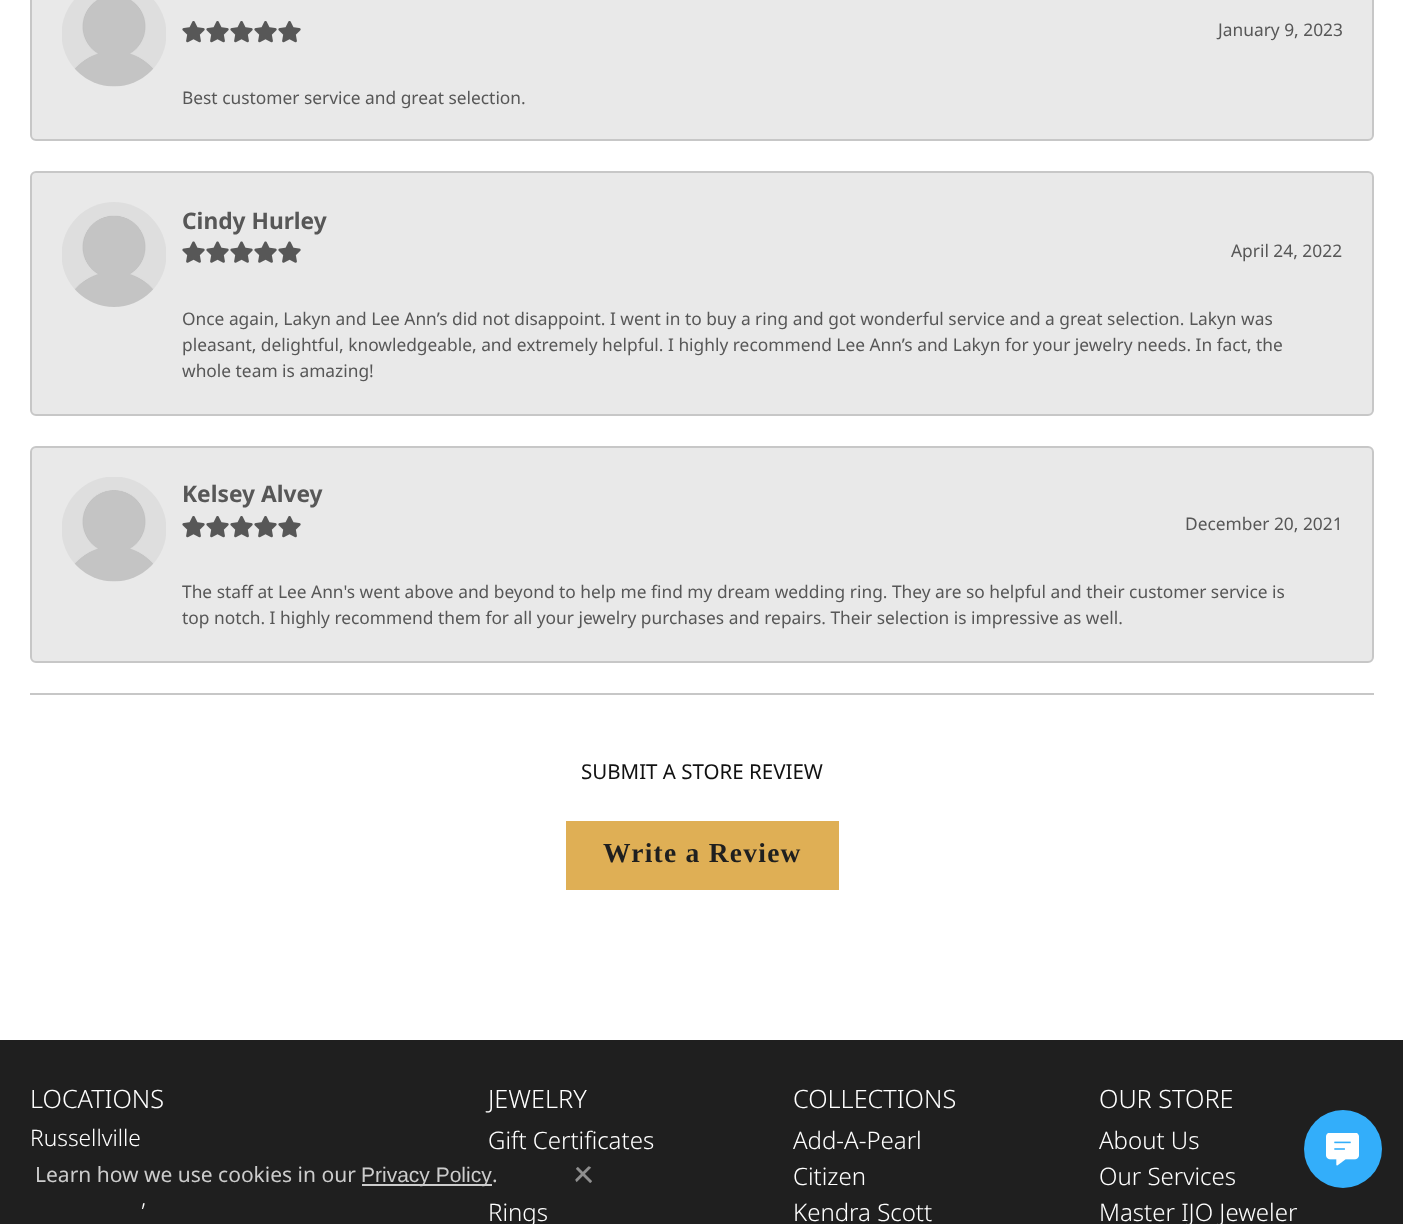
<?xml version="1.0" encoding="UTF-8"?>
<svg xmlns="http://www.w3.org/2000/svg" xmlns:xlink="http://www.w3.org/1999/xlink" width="1403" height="1224">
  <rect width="100%" height="100%" fill="#1f1f1f" />
  <rect width="1403" height="1040" fill="#ffffff" />
  <rect x="30" y="693" width="1344" height="2" fill="#c7c7c7" />
  <rect x="31" y="-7" width="1342" height="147" rx="5" fill="#e9e9e9" stroke="#c7c7c7" stroke-width="2" />
  <image x="62" y="0" width="104" height="87" xlink:href="image1.png" />
  <image x="182" y="21" width="23" height="22" xlink:href="image2.png" />
  <image x="206" y="21" width="23" height="22" xlink:href="image2.png" />
  <image x="230" y="21" width="23" height="22" xlink:href="image2.png" />
  <image x="254" y="21" width="23" height="22" xlink:href="image2.png" />
  <image x="278" y="21" width="23" height="22" xlink:href="image2.png" />
  <rect x="31" y="172" width="1342" height="243" rx="5" fill="#e9e9e9" stroke="#c7c7c7" stroke-width="2" />
  <image x="62" y="202" width="104" height="105" xlink:href="image3.png" />
  <image x="182" y="241" width="23" height="22" xlink:href="image4.png" />
  <image x="206" y="241" width="23" height="22" xlink:href="image4.png" />
  <image x="230" y="241" width="23" height="22" xlink:href="image4.png" />
  <image x="254" y="241" width="23" height="22" xlink:href="image4.png" />
  <image x="278" y="241" width="23" height="22" xlink:href="image4.png" />
  <rect x="31" y="447" width="1342" height="215" rx="5" fill="#e9e9e9" stroke="#c7c7c7" stroke-width="2" />
  <image x="62" y="477" width="104" height="105" xlink:href="image5.png" />
  <image x="182" y="516" width="23" height="22" xlink:href="image2.png" />
  <image x="206" y="516" width="23" height="22" xlink:href="image2.png" />
  <image x="230" y="516" width="23" height="22" xlink:href="image2.png" />
  <image x="254" y="516" width="23" height="22" xlink:href="image2.png" />
  <image x="278" y="516" width="23" height="22" xlink:href="image2.png" />
  <rect x="566" y="821" width="273" height="69" fill="#dfaf55" />
  <circle cx="1343" cy="1149" r="39" fill="#33aefa" />
  <image x="1326" y="1133" width="33" height="33" xlink:href="image6.png" />
  <rect x="362" y="1184" width="130" height="2" fill="#cccccc" />
  <image x="575" y="1166" width="17" height="17" xlink:href="image7.png" />
  <text x="1218" y="36" style="font-family: Noto Sans; font-size: 17.35px; fill: #575757">January 9, 2023</text>
  <text x="182" y="104" style="font-family: Noto Sans; font-size: 17.35px; fill: #575757">Best customer service and great selection.</text>
  <text x="182" y="229" style="font-family: Noto Sans; font-size: 22.75px; font-weight: bold; fill: #575757">Cindy Hurley</text>
  <text x="1231" y="257" style="font-family: Noto Sans; font-size: 17.35px; fill: #575757">April 24, 2022</text>
  <text x="182" y="325" style="font-family: Noto Sans; font-size: 17.35px; fill: #575757">Once again, Lakyn and Lee Ann’s did not disappoint. I went in to buy a ring and got wonderful service and a great selection. Lakyn was</text>
  <text x="182" y="351" style="font-family: Noto Sans; font-size: 17.35px; fill: #575757">pleasant, delightful, knowledgeable, and extremely helpful. I highly recommend Lee Ann’s and Lakyn for your jewelry needs. In fact, the</text>
  <text x="182" y="377" style="font-family: Noto Sans; font-size: 17.35px; fill: #575757">whole team is amazing!</text>
  <text x="182" y="502" style="font-family: Noto Sans; font-size: 22.75px; font-weight: bold; fill: #575757">Kelsey Alvey</text>
  <text x="1185" y="530" style="font-family: Noto Sans; font-size: 17.35px; fill: #575757">December 20, 2021</text>
  <text x="182" y="598" style="font-family: Noto Sans; font-size: 17.35px; fill: #575757">The staff at Lee Ann's went above and beyond to help me find my dream wedding ring. They are so helpful and their customer service is</text>
  <text x="182" y="624" style="font-family: Noto Sans; font-size: 17.35px; fill: #575757">top notch. I highly recommend them for all your jewelry purchases and repairs. Their selection is impressive as well.</text>
  <text x="581" y="779" style="font-family: Noto Sans; font-size: 20.5px; fill: #111111">SUBMIT A STORE REVIEW</text>
  <text x="603" y="862" style="font-family: Liberation Serif; font-size: 27.5px; font-weight: bold; letter-spacing: 1.25px; fill: #1f1f1f">Write a Review</text>
  <text x="30" y="1108" style="font-family: Noto Sans; font-size: 25.25px; font-weight: 300; fill: #ffffff">LOCATIONS</text>
  <text x="30" y="1146" style="font-family: Noto Sans; font-size: 22.75px; font-weight: 300; fill: #ffffff">Russellville</text>
  <text x="141" y="1206" style="font-family: Noto Sans; font-size: 22.75px; font-weight: 300; fill: #ffffff">,</text>
  <text x="488" y="1108" style="font-family: Noto Sans; font-size: 25.25px; font-weight: 300; fill: #ffffff">JEWELRY</text>
  <text x="488" y="1149" style="font-family: Noto Sans; font-size: 24px; font-weight: 300; fill: #ffffff">Gift Certificates</text>
  <text x="488" y="1221" style="font-family: Noto Sans; font-size: 24px; font-weight: 300; fill: #ffffff">Rings</text>
  <text x="793" y="1108" style="font-family: Noto Sans; font-size: 25.25px; font-weight: 300; fill: #ffffff">COLLECTIONS</text>
  <text x="793" y="1149" style="font-family: Noto Sans; font-size: 24px; font-weight: 300; fill: #ffffff">Add-A-Pearl</text>
  <text x="793" y="1185" style="font-family: Noto Sans; font-size: 24px; font-weight: 300; fill: #ffffff">Citizen</text>
  <text x="793" y="1221" style="font-family: Noto Sans; font-size: 24px; font-weight: 300; fill: #ffffff">Kendra Scott</text>
  <text x="1099" y="1108" style="font-family: Noto Sans; font-size: 25.25px; font-weight: 300; fill: #ffffff">OUR STORE</text>
  <text x="1099" y="1149" style="font-family: Noto Sans; font-size: 24px; font-weight: 300; fill: #ffffff">About Us</text>
  <text x="1099" y="1185" style="font-family: Noto Sans; font-size: 24px; font-weight: 300; fill: #ffffff">Our Services</text>
  <text x="1099" y="1221" style="font-family: Noto Sans; font-size: 24px; font-weight: 300; fill: #ffffff">Master IJO Jeweler</text>
  <text x="35" y="1182" style="font-family: Noto Sans; font-size: 21px; fill: #cccccc">Learn how we use cookies in our</text>
  <text x="361" y="1182" style="font-family: Liberation Sans; font-size: 21px; fill: #cccccc">Privacy Policy</text>
  <text x="492" y="1182" style="font-family: Noto Sans; font-size: 21px; fill: #cccccc">.</text>
</svg>
